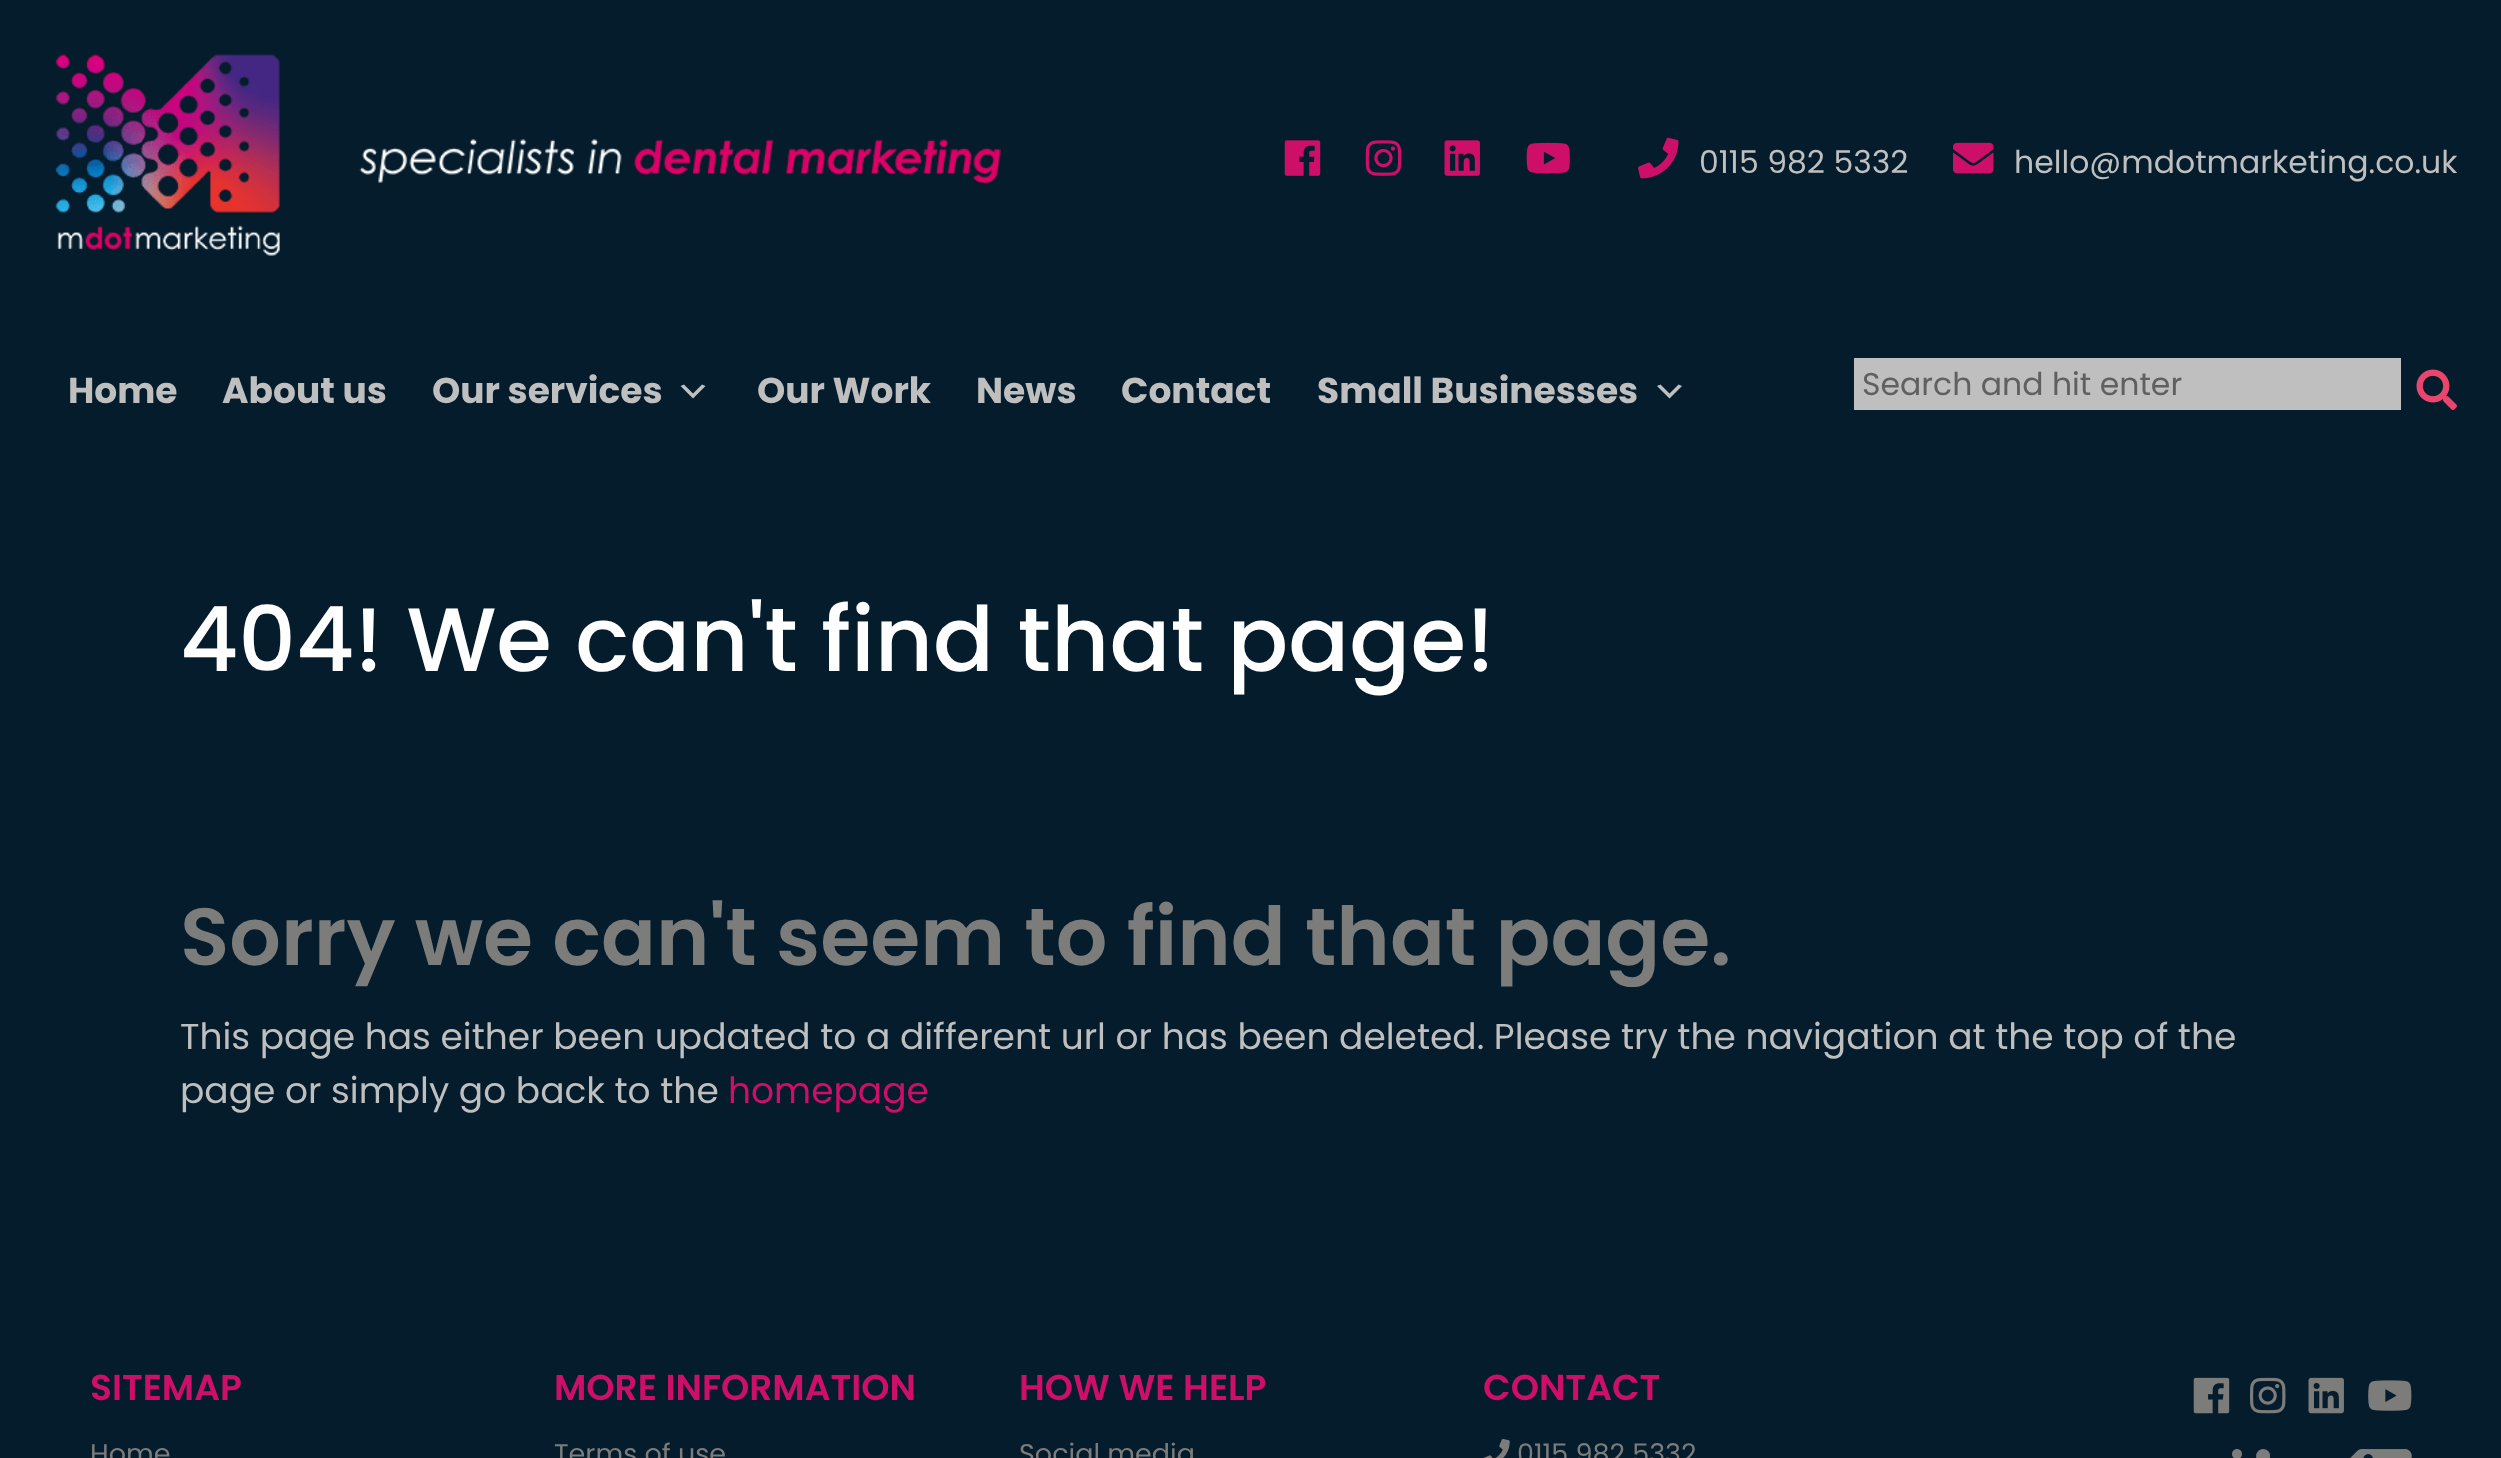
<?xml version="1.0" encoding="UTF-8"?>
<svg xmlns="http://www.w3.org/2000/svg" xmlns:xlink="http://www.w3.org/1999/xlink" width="2501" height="1458">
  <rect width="100%" height="100%" fill="#041c2c" />
  <image x="55" y="54" width="946" height="202" xlink:href="image1.png" />
  <image x="1284" y="140" width="37" height="36" xlink:href="image2.png" />
  <image x="1365" y="140" width="37" height="36" xlink:href="image3.png" />
  <image x="1444" y="140" width="36" height="36" xlink:href="image4.png" />
  <image x="1526" y="142" width="44" height="32" xlink:href="image5.png" />
  <image x="1638" y="137" width="41" height="42" xlink:href="image6.png" />
  <image x="1953" y="142" width="41" height="32" xlink:href="image7.png" />
  <path d="M 684 384.5 l 9 9 l 9 -9 l 3.5 1.5 l -12.5 12.5 l -12.5 -12.5 z" fill="#bfbfbf" />
  <path d="M 1660.5 384.5 l 9 9 l 9 -9 l 3.5 1.5 l -12.5 12.5 l -12.5 -12.5 z" fill="#bfbfbf" />
  <rect x="1854" y="358" width="547" height="52" fill="#bfbfbf" />
  <image x="2416" y="369" width="41" height="41" xlink:href="image8.png" />
  <image x="1483" y="1439" width="27" height="19" xlink:href="image9.png" />
  <image x="2193" y="1377" width="37" height="37" xlink:href="image10.png" />
  <image x="2250" y="1377" width="36" height="37" xlink:href="image11.png" />
  <image x="2308" y="1377" width="36" height="37" xlink:href="image12.png" />
  <image x="2368" y="1380" width="44" height="31" xlink:href="image13.png" />
  <image x="2232" y="1449" width="180" height="9" xlink:href="image14.png" />
  <text x="1699" y="173" style="font-family: Poppins; font-size: 31.5px; fill: #bfbfbf">0115 982 5332</text>
  <text x="2014" y="173" style="font-family: Poppins; font-size: 31.5px; fill: #bfbfbf">hello@mdotmarketing.co.uk</text>
  <text x="68" y="403" style="font-family: Poppins; font-size: 36px; font-weight: bold; fill: #bfbfbf">Home</text>
  <text x="222" y="403" style="font-family: Poppins; font-size: 36px; font-weight: bold; fill: #bfbfbf">About us</text>
  <text x="432" y="403" style="font-family: Poppins; font-size: 36px; font-weight: bold; fill: #bfbfbf">Our services</text>
  <text x="757" y="403" style="font-family: Poppins; font-size: 36px; font-weight: bold; fill: #bfbfbf">Our Work</text>
  <text x="976" y="403" style="font-family: Poppins; font-size: 36px; font-weight: bold; fill: #bfbfbf">News</text>
  <text x="1121" y="403" style="font-family: Poppins; font-size: 36px; font-weight: bold; fill: #bfbfbf">Contact</text>
  <text x="1317" y="403" style="font-family: Poppins; font-size: 36px; font-weight: bold; fill: #bfbfbf">Small Businesses</text>
  <text x="1862" y="395" style="font-family: Poppins; font-size: 31.5px; fill: #606060">Search and hit enter</text>
  <text x="180" y="671" style="font-family: Poppins; font-size: 90px; font-weight: 500; fill: #ffffff">404! We can't find that page!</text>
  <text x="180" y="965" style="font-family: Poppins; font-size: 81px; font-weight: 600; fill: #7c7c7b">Sorry we can't seem to find that page.</text>
  <text x="180" y="1049" style="font-family: Poppins; font-size: 36px; fill: #bfbfbf">This page has either been updated to a different url or has been deleted. Please try the navigation at the top of the</text>
  <text x="180" y="1103" style="font-family: Poppins; font-size: 36px; fill: #bfbfbf">page or simply go back to the</text>
  <text x="728" y="1103" style="font-family: Poppins; font-size: 36px; fill: #ce0f69">homepage</text>
  <text x="90" y="1400" style="font-family: Poppins; font-size: 36px; font-weight: 600; fill: #ce0f69">SITEMAP</text>
  <text x="90" y="1463" style="font-family: Poppins; font-size: 27px; fill: #7c7c7b">Home</text>
  <text x="554" y="1400" style="font-family: Poppins; font-size: 36px; font-weight: 600; fill: #ce0f69">MORE INFORMATION</text>
  <text x="554" y="1463" style="font-family: Poppins; font-size: 27px; fill: #7c7c7b">Terms of use</text>
  <text x="1019" y="1400" style="font-family: Poppins; font-size: 36px; font-weight: 600; fill: #ce0f69">HOW WE HELP</text>
  <text x="1019" y="1463" style="font-family: Poppins; font-size: 27px; fill: #7c7c7b">Social media</text>
  <text x="1483" y="1400" style="font-family: Poppins; font-size: 36px; font-weight: 600; fill: #ce0f69">CONTACT</text>
  <text x="1517" y="1463" style="font-family: Poppins; font-size: 27px; fill: #7c7c7b">0115 982 5332</text>
</svg>
